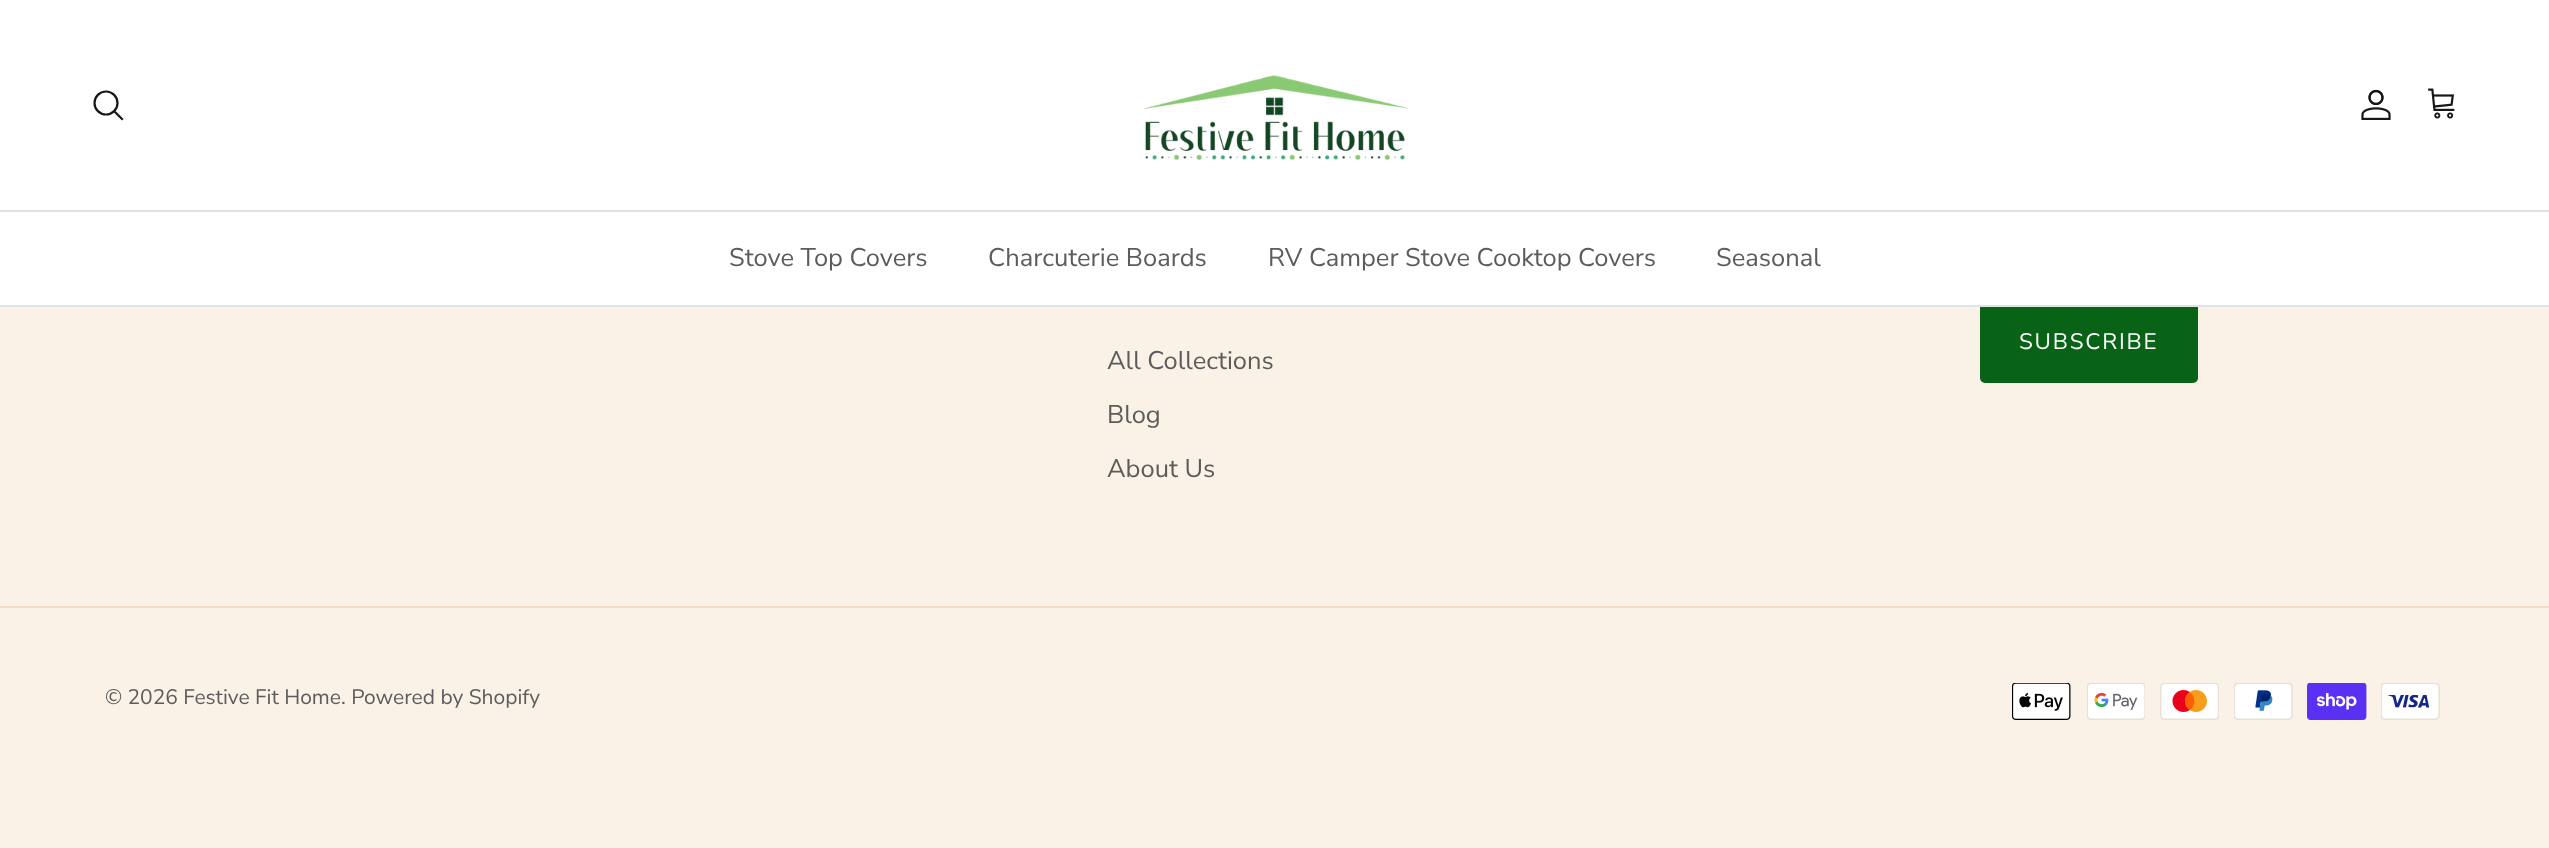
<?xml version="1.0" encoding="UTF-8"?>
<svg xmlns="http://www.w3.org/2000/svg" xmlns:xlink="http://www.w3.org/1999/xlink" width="2549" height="848">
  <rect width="100%" height="100%" fill="#faf2e6" />
  <rect width="2549" height="210" fill="#ffffff" />
  <rect y="210" width="2549" height="2" fill="#dfe3e8" />
  <circle cx="106" cy="103" r="11.5" fill="none" stroke="#171717" stroke-width="2.2" />
  <path d="M 115.5 112.5 l 6.5 6.5" fill="none" stroke="#171717" stroke-width="2.2" stroke-linecap="square" />
  <image x="1142" y="75" width="267" height="86" xlink:href="image1.png" />
  <image x="2361" y="89" width="30" height="31" xlink:href="image2.png" />
  <image x="2428" y="88" width="27" height="31" xlink:href="image3.png" />
  <rect x="1981" y="304" width="216" height="78" rx="4" fill="#096316" stroke="#096316" stroke-width="2" />
  <rect y="305" width="2549" height="2" fill="#dfe3e8" />
  <rect y="212" width="2549" height="93" fill="#ffffff" />
  <rect y="606" width="2549" height="2" fill="#efdfc7" />
  <image x="2012" y="683" width="59" height="37" xlink:href="image4.png" />
  <image x="2087" y="683" width="58" height="37" xlink:href="image5.png" />
  <image x="2160" y="683" width="59" height="37" xlink:href="image6.png" />
  <image x="2234" y="683" width="59" height="37" xlink:href="image7.png" />
  <image x="2307" y="683" width="60" height="37" xlink:href="image8.png" />
  <image x="2381" y="683" width="59" height="37" xlink:href="image9.png" />
  <text x="729" y="266" style="font-family: Nunito Sans; font-size: 25.5px; fill: #5c5c5c">Stove Top Covers</text>
  <text x="988" y="266" style="font-family: Nunito Sans; font-size: 25.5px; fill: #5c5c5c">Charcuterie Boards</text>
  <text x="1268" y="266" style="font-family: Nunito Sans; font-size: 25.5px; fill: #5c5c5c">RV Camper Stove Cooktop Covers</text>
  <text x="1716" y="266" style="font-family: Nunito Sans; font-size: 25.5px; fill: #5c5c5c">Seasonal</text>
  <text x="2019" y="349" style="font-family: Nunito Sans; font-size: 22.5px; letter-spacing: 1.75px; fill: #ffffff">SUBSCRIBE</text>
  <text x="1107" y="369" style="font-family: Nunito Sans; font-size: 25.5px; fill: #5c5c5c">All Collections</text>
  <text x="1107" y="423" style="font-family: Nunito Sans; font-size: 25.5px; fill: #5c5c5c">Blog</text>
  <text x="1107" y="477" style="font-family: Nunito Sans; font-size: 25.5px; fill: #5c5c5c">About Us</text>
  <text x="105" y="704" style="font-family: Nunito Sans; font-size: 21px; fill: #5c5c5c">© 2026 Festive Fit Home. Powered by Shopify</text>
</svg>
